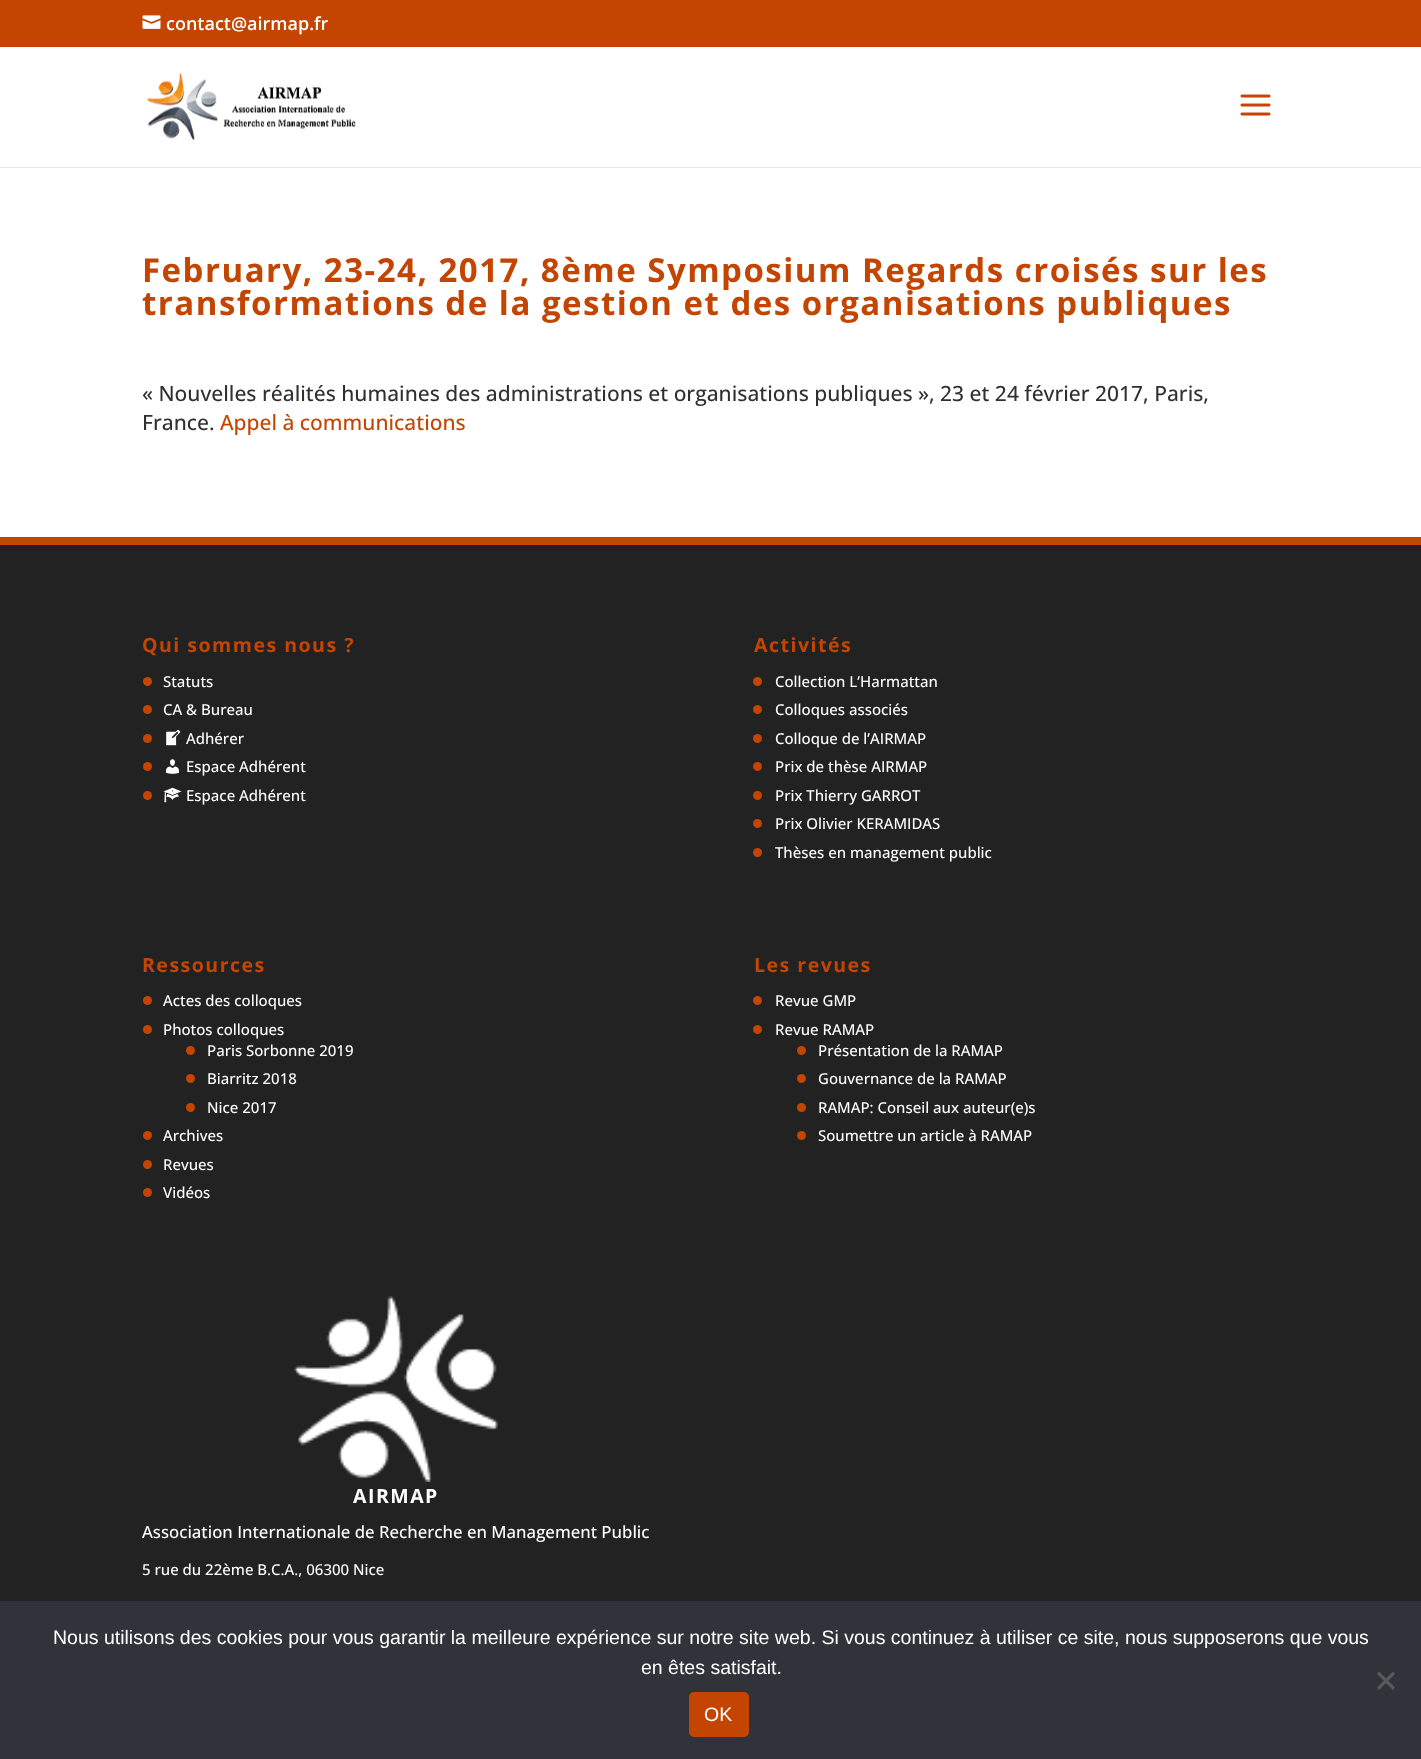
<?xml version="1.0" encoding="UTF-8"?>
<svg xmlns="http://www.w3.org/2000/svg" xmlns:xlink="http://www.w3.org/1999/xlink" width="1421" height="1759">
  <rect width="100%" height="100%" fill="#ffffff" />
  <rect width="1421" height="47" fill="#c34501" />
  <image x="142" y="15" width="19" height="14" xlink:href="image1.png" />
  <rect y="167" width="1421" height="1" fill="#e6e6e6" />
  <image x="147" y="73" width="209" height="67" xlink:href="image2.png" />
  <image x="1240" y="94" width="31" height="22" xlink:href="image3.png" />
  <rect y="545" width="1421" height="1056" fill="#222222" />
  <rect y="537" width="1421" height="8" fill="#c34501" />
  <circle cx="147.5" cy="681.5" r="4.5" fill="#c34501" />
  <circle cx="147.5" cy="709.5" r="4.5" fill="#c34501" />
  <circle cx="147.5" cy="738.5" r="4.5" fill="#c34501" />
  <image x="166" y="729" width="15" height="17" xlink:href="image4.png" />
  <circle cx="147.5" cy="766.5" r="4.5" fill="#c34501" />
  <image x="166" y="759" width="13" height="15" xlink:href="image5.png" />
  <circle cx="147.5" cy="795.5" r="4.5" fill="#c34501" />
  <image x="163" y="787" width="19" height="16" xlink:href="image6.png" />
  <circle cx="757.5" cy="681.5" r="4.5" fill="#c34501" />
  <circle cx="757.5" cy="709.5" r="4.5" fill="#c34501" />
  <circle cx="757.5" cy="738.5" r="4.5" fill="#c34501" />
  <circle cx="757.5" cy="766.5" r="4.5" fill="#c34501" />
  <circle cx="757.5" cy="795.5" r="4.5" fill="#c34501" />
  <circle cx="757.5" cy="823.5" r="4.5" fill="#c34501" />
  <circle cx="757.5" cy="852.5" r="4.5" fill="#c34501" />
  <circle cx="147.5" cy="1000.5" r="4.5" fill="#c34501" />
  <circle cx="147.5" cy="1029.5" r="4.5" fill="#c34501" />
  <circle cx="190.5" cy="1050.5" r="4.5" fill="#c34501" />
  <circle cx="190.5" cy="1078.5" r="4.5" fill="#c34501" />
  <circle cx="190.5" cy="1107.5" r="4.5" fill="#c34501" />
  <circle cx="147.5" cy="1135.5" r="4.5" fill="#c34501" />
  <circle cx="147.5" cy="1164.5" r="4.5" fill="#c34501" />
  <circle cx="147.5" cy="1192.5" r="4.5" fill="#c34501" />
  <circle cx="757.5" cy="1000.5" r="4.5" fill="#c34501" />
  <circle cx="757.5" cy="1029.5" r="4.5" fill="#c34501" />
  <circle cx="801.5" cy="1050.5" r="4.5" fill="#c34501" />
  <circle cx="801.5" cy="1078.5" r="4.5" fill="#c34501" />
  <circle cx="801.5" cy="1107.5" r="4.5" fill="#c34501" />
  <circle cx="801.5" cy="1135.5" r="4.5" fill="#c34501" />
  <image x="294" y="1296" width="204" height="186" xlink:href="image7.png" />
  <rect y="1601" width="1421" height="158" fill="#32323a" />
  <path d="M 1393 1671.5 l 2 2.5 l -16 16 l -2 -2.5 z" fill="#59595d" />
  <path d="M 1377 1674 l 2 -2.5 l 16 16 l -2 2.5 z" fill="#59595d" />
  <rect x="689" y="1692" width="60" height="45" rx="5" fill="#c34501" />
  <text x="166" y="30" style="font-family: Open Sans; font-size: 18px; font-weight: 600; fill: #ffffff">contact@airmap.fr</text>
  <text x="142" y="282" style="font-family: Open Sans; font-size: 33px; font-weight: bold; letter-spacing: 1.5px; fill: #c34501">February, 23-24, 2017, 8ème Symposium Regards croisés sur les</text>
  <text x="142" y="315" style="font-family: Open Sans; font-size: 33px; font-weight: bold; letter-spacing: 1.5px; fill: #c34501">transformations de la gestion et des organisations publiques</text>
  <text x="142" y="401" style="font-family: Open Sans; font-size: 21px; font-weight: 500; fill: #303030">« Nouvelles réalités humaines des administrations et organisations publiques », 23 et 24 février 2017, Paris,</text>
  <text x="142" y="430" style="font-family: Open Sans; font-size: 21px; font-weight: 500; fill: #303030">France.</text>
  <text x="220" y="430" style="font-family: Open Sans; font-size: 21px; font-weight: 500; fill: #c34501">Appel à communications</text>
  <text x="142" y="652" style="font-family: Open Sans; font-size: 19.5px; font-weight: bold; letter-spacing: 1.5px; fill: #c34501">Qui sommes nous ?</text>
  <text x="163" y="687" style="font-family: Open Sans; font-size: 15px; font-weight: 500; fill: #ffffff">Statuts</text>
  <text x="163" y="715" style="font-family: Open Sans; font-size: 15px; font-weight: 500; fill: #ffffff">CA &amp; Bureau</text>
  <text x="186" y="744" style="font-family: Open Sans; font-size: 15px; font-weight: 500; fill: #ffffff">Adhérer</text>
  <text x="186" y="772" style="font-family: Open Sans; font-size: 15px; font-weight: 500; fill: #ffffff">Espace Adhérent</text>
  <text x="186" y="801" style="font-family: Open Sans; font-size: 15px; font-weight: 500; fill: #ffffff">Espace Adhérent</text>
  <text x="754" y="652" style="font-family: Open Sans; font-size: 19.5px; font-weight: bold; letter-spacing: 1.5px; fill: #c34501">Activités</text>
  <text x="775" y="687" style="font-family: Open Sans; font-size: 15px; font-weight: 500; fill: #ffffff">Collection L’Harmattan</text>
  <text x="775" y="715" style="font-family: Open Sans; font-size: 15px; font-weight: 500; fill: #ffffff">Colloques associés</text>
  <text x="775" y="744" style="font-family: Open Sans; font-size: 15px; font-weight: 500; fill: #ffffff">Colloque de l’AIRMAP</text>
  <text x="775" y="772" style="font-family: Open Sans; font-size: 15px; font-weight: 500; fill: #ffffff">Prix de thèse AIRMAP</text>
  <text x="775" y="801" style="font-family: Open Sans; font-size: 15px; font-weight: 500; fill: #ffffff">Prix Thierry GARROT</text>
  <text x="775" y="829" style="font-family: Open Sans; font-size: 15px; font-weight: 500; fill: #ffffff">Prix Olivier KERAMIDAS</text>
  <text x="775" y="858" style="font-family: Open Sans; font-size: 15px; font-weight: 500; fill: #ffffff">Thèses en management public</text>
  <text x="142" y="972" style="font-family: Open Sans; font-size: 19.5px; font-weight: bold; letter-spacing: 1.5px; fill: #c34501">Ressources</text>
  <text x="163" y="1006" style="font-family: Open Sans; font-size: 15px; font-weight: 500; fill: #ffffff">Actes des colloques</text>
  <text x="163" y="1035" style="font-family: Open Sans; font-size: 15px; font-weight: 500; fill: #ffffff">Photos colloques</text>
  <text x="207" y="1056" style="font-family: Open Sans; font-size: 15px; font-weight: 500; fill: #ffffff">Paris Sorbonne 2019</text>
  <text x="207" y="1084" style="font-family: Open Sans; font-size: 15px; font-weight: 500; fill: #ffffff">Biarritz 2018</text>
  <text x="207" y="1113" style="font-family: Open Sans; font-size: 15px; font-weight: 500; fill: #ffffff">Nice 2017</text>
  <text x="163" y="1141" style="font-family: Open Sans; font-size: 15px; font-weight: 500; fill: #ffffff">Archives</text>
  <text x="163" y="1170" style="font-family: Open Sans; font-size: 15px; font-weight: 500; fill: #ffffff">Revues</text>
  <text x="163" y="1198" style="font-family: Open Sans; font-size: 15px; font-weight: 500; fill: #ffffff">Vidéos</text>
  <text x="754" y="972" style="font-family: Open Sans; font-size: 19.5px; font-weight: bold; letter-spacing: 1.5px; fill: #c34501">Les revues</text>
  <text x="775" y="1006" style="font-family: Open Sans; font-size: 15px; font-weight: 500; fill: #ffffff">Revue GMP</text>
  <text x="775" y="1035" style="font-family: Open Sans; font-size: 15px; font-weight: 500; fill: #ffffff">Revue RAMAP</text>
  <text x="818" y="1056" style="font-family: Open Sans; font-size: 15px; font-weight: 500; fill: #ffffff">Présentation de la RAMAP</text>
  <text x="818" y="1084" style="font-family: Open Sans; font-size: 15px; font-weight: 500; fill: #ffffff">Gouvernance de la RAMAP</text>
  <text x="818" y="1113" style="font-family: Open Sans; font-size: 15px; font-weight: 500; fill: #ffffff">RAMAP: Conseil aux auteur(e)s</text>
  <text x="818" y="1141" style="font-family: Open Sans; font-size: 15px; font-weight: 500; fill: #ffffff">Soumettre un article à RAMAP</text>
  <text x="353" y="1503" style="font-family: Open Sans; font-size: 19.5px; font-weight: bold; letter-spacing: 1.5px; fill: #ffffff">AIRMAP</text>
  <text x="142" y="1538" style="font-family: Open Sans; font-size: 16.8px; font-weight: 500; fill: #ffffff">Association Internationale de Recherche en Management Public</text>
  <text x="142" y="1575" style="font-family: Open Sans; font-size: 15px; font-weight: 500; fill: #ffffff">5 rue du 22ème B.C.A., 06300 Nice</text>
  <text x="53" y="1644" style="font-family: Liberation Sans; font-size: 19.5px; fill: #ffffff">Nous utilisons des cookies pour vous garantir la meilleure expérience sur notre site web. Si vous continuez à utiliser ce site, nous supposerons que vous</text>
  <text x="641" y="1674" style="font-family: Liberation Sans; font-size: 19.5px; fill: #ffffff">en êtes satisfait.</text>
  <text x="704" y="1721" style="font-family: Liberation Sans; font-size: 19.5px; fill: #ffffff">OK</text>
</svg>
